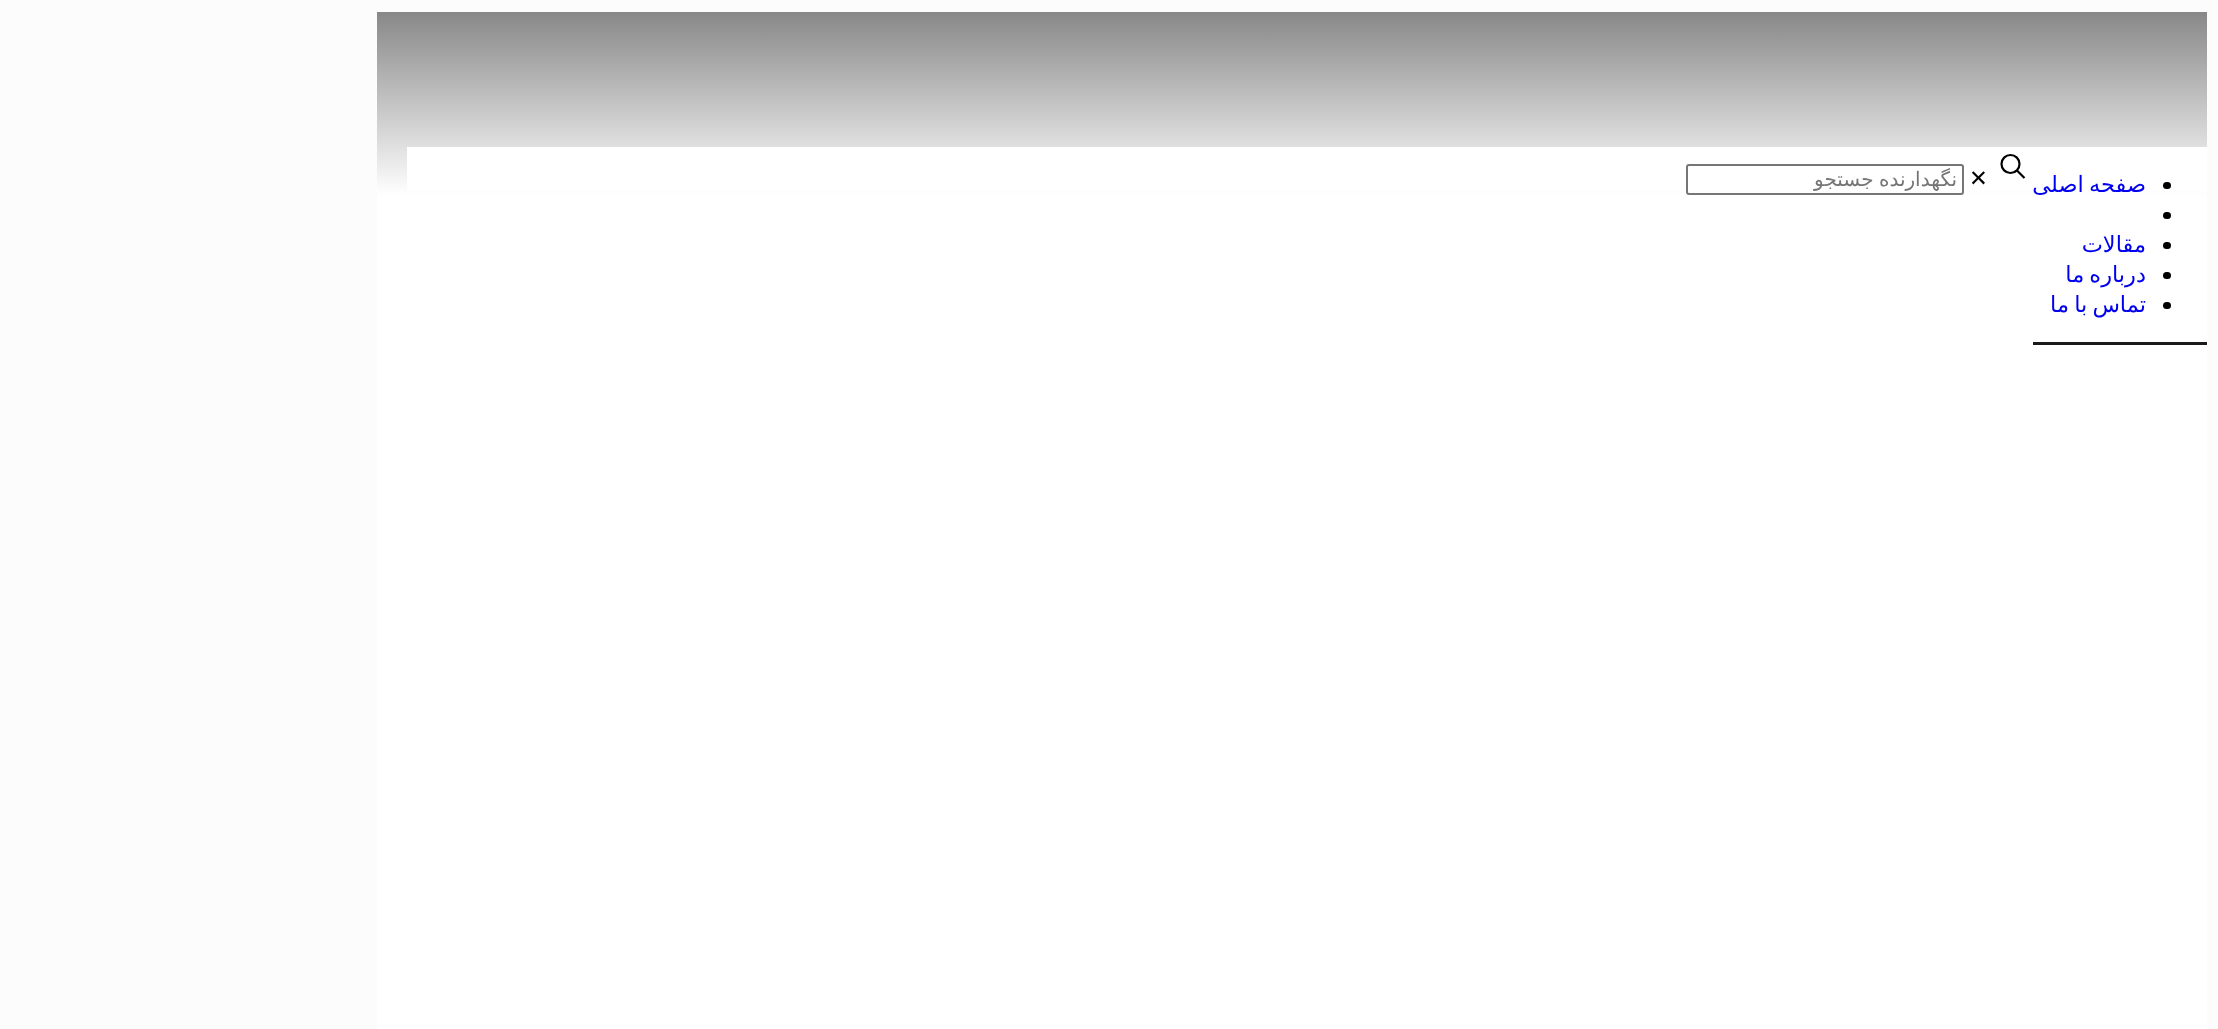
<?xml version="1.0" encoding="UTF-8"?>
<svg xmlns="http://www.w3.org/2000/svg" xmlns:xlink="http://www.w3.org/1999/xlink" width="2218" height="1029">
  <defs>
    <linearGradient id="g1" gradientUnits="userSpaceOnUse" x1="1292" y1="12" x2="1292" y2="195"><stop offset="0" stop-color="#888888" /><stop offset="1" stop-color="#ffffff" /></linearGradient>
  </defs>
  <rect width="100%" height="100%" fill="#fcfcfc" />
  <rect x="377" y="195" width="1830" height="834" fill="#ffffff" />
  <rect x="377" y="12" width="1830" height="183" fill="url(#g1)" />
  <rect x="2033" y="342" width="174" height="3" fill="#1a1a1a" />
  <rect x="407" y="147" width="1800" height="44" fill="#ffffff" />
  <rect x="2163" y="182" width="8" height="7" rx="3.5" fill="#000000" />
  <rect x="2163" y="212" width="8" height="7" rx="3.5" fill="#000000" />
  <rect x="2163" y="242" width="8" height="7" rx="3.5" fill="#000000" />
  <rect x="2163" y="272" width="8" height="7" rx="3.5" fill="#000000" />
  <rect x="2163" y="302" width="8" height="7" rx="3.5" fill="#000000" />
  <circle cx="2010.5" cy="164" r="9" fill="none" stroke="#000000" stroke-width="2.2" />
  <path d="M 2017 170.5 l 7.5 7.5" fill="none" stroke="#000000" stroke-width="2.2" />
  <rect x="1687" y="165" width="276" height="29" rx="2" fill="none" stroke="#767676" stroke-width="2" />
  <text x="2146" y="192" word-spacing="-2" style="font-family: DejaVu Sans; font-size: 22.5px; direction: rtl; fill: #0000ee">صفحه اصلی</text>
  <text x="2146" y="252" style="font-family: DejaVu Sans; font-size: 22.5px; direction: rtl; fill: #0000ee">مقالات</text>
  <text x="2146" y="282" word-spacing="-2" style="font-family: DejaVu Sans; font-size: 22.5px; direction: rtl; fill: #0000ee">درباره ما</text>
  <text x="2146" y="312" word-spacing="-2" style="font-family: DejaVu Sans; font-size: 22.5px; direction: rtl; fill: #0000ee">تماس با ما</text>
  <text x="1969" y="186" style="font-family: DejaVu Sans; font-size: 22.5px; fill: #000000">✕</text>
  <text x="1957" y="186" word-spacing="-1" style="font-family: DejaVu Sans; font-size: 20px; direction: rtl; fill: #757575">نگهدارنده جستجو</text>
</svg>
